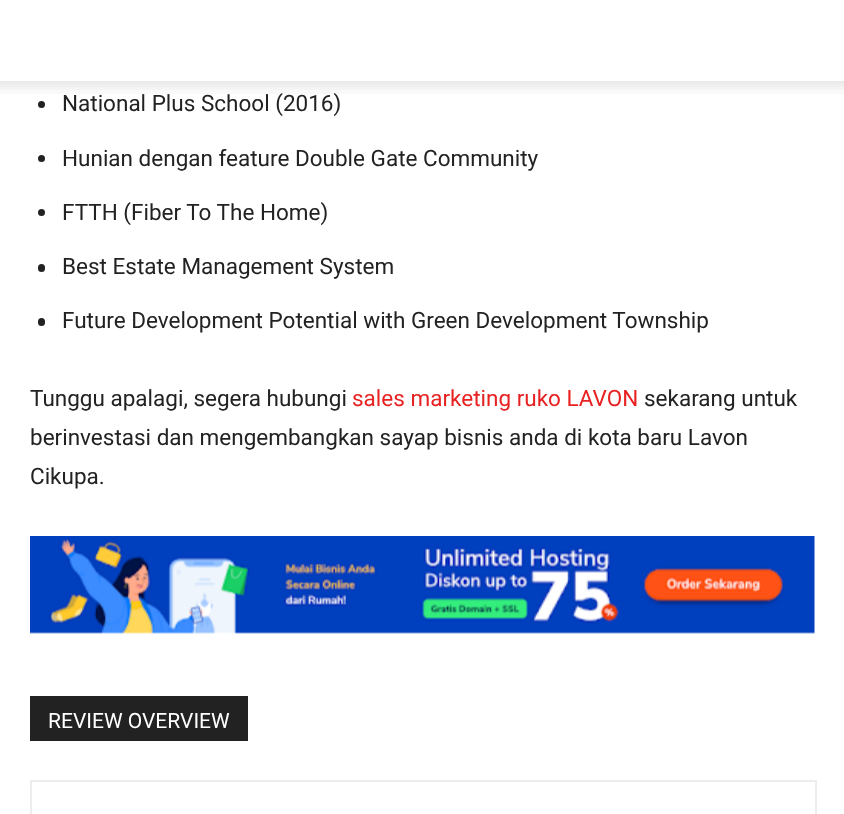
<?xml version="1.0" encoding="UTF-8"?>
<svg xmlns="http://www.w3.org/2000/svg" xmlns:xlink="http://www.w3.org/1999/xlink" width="844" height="814">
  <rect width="100%" height="100%" fill="#ffffff" />
  <circle cx="41.5" cy="104.5" r="3.5" fill="#222222" />
  <circle cx="41.5" cy="158.5" r="3.5" fill="#222222" />
  <circle cx="41.5" cy="212.5" r="3.5" fill="#222222" />
  <rect x="38" y="264" width="7" height="8" rx="3.5" fill="#222222" />
  <rect x="38" y="318" width="7" height="8" rx="3.5" fill="#222222" />
  <image x="30" y="536" width="785" height="98" xlink:href="image2.png" />
  <rect x="30" y="696" width="218" height="45" fill="#222222" />
  <rect x="30" y="780" width="785" height="2" fill="#ededed" />
  <rect x="30" y="780" width="2" height="34" fill="#ededed" />
  <rect x="815" y="780" width="2" height="34" fill="#ededed" />
  <text x="62" y="111" style="font-family: Roboto; font-size: 22.5px; fill: #222222">National Plus School (2016)</text>
  <image x="0" y="81" width="844" height="13" xlink:href="image1.png" />
  <text x="62" y="166" style="font-family: Roboto; font-size: 22.5px; fill: #222222">Hunian dengan feature Double Gate Community</text>
  <text x="62" y="220" style="font-family: Roboto; font-size: 22.5px; fill: #222222">FTTH (Fiber To The Home)</text>
  <text x="62" y="274" style="font-family: Roboto; font-size: 22.5px; fill: #222222">Best Estate Management System</text>
  <text x="62" y="328" style="font-family: Roboto; font-size: 22.5px; fill: #222222">Future Development Potential with Green Development Township</text>
  <text x="30" y="406" style="font-family: Roboto; font-size: 22.5px; fill: #222222">Tunggu apalagi, segera hubungi</text>
  <text x="352" y="406" style="font-family: Roboto; font-size: 22.5px; fill: #e82222">sales marketing ruko LAVON</text>
  <text x="644" y="406" style="font-family: Roboto; font-size: 22.5px; fill: #222222">sekarang untuk</text>
  <text x="30" y="445" style="font-family: Roboto; font-size: 22.5px; fill: #222222">berinvestasi dan mengembangkan sayap bisnis anda di kota baru Lavon</text>
  <text x="30" y="484" style="font-family: Roboto; font-size: 22.5px; fill: #222222">Cikupa.</text>
  <text x="48" y="728" style="font-family: Roboto; font-size: 21px; fill: #ffffff">REVIEW OVERVIEW</text>
</svg>
